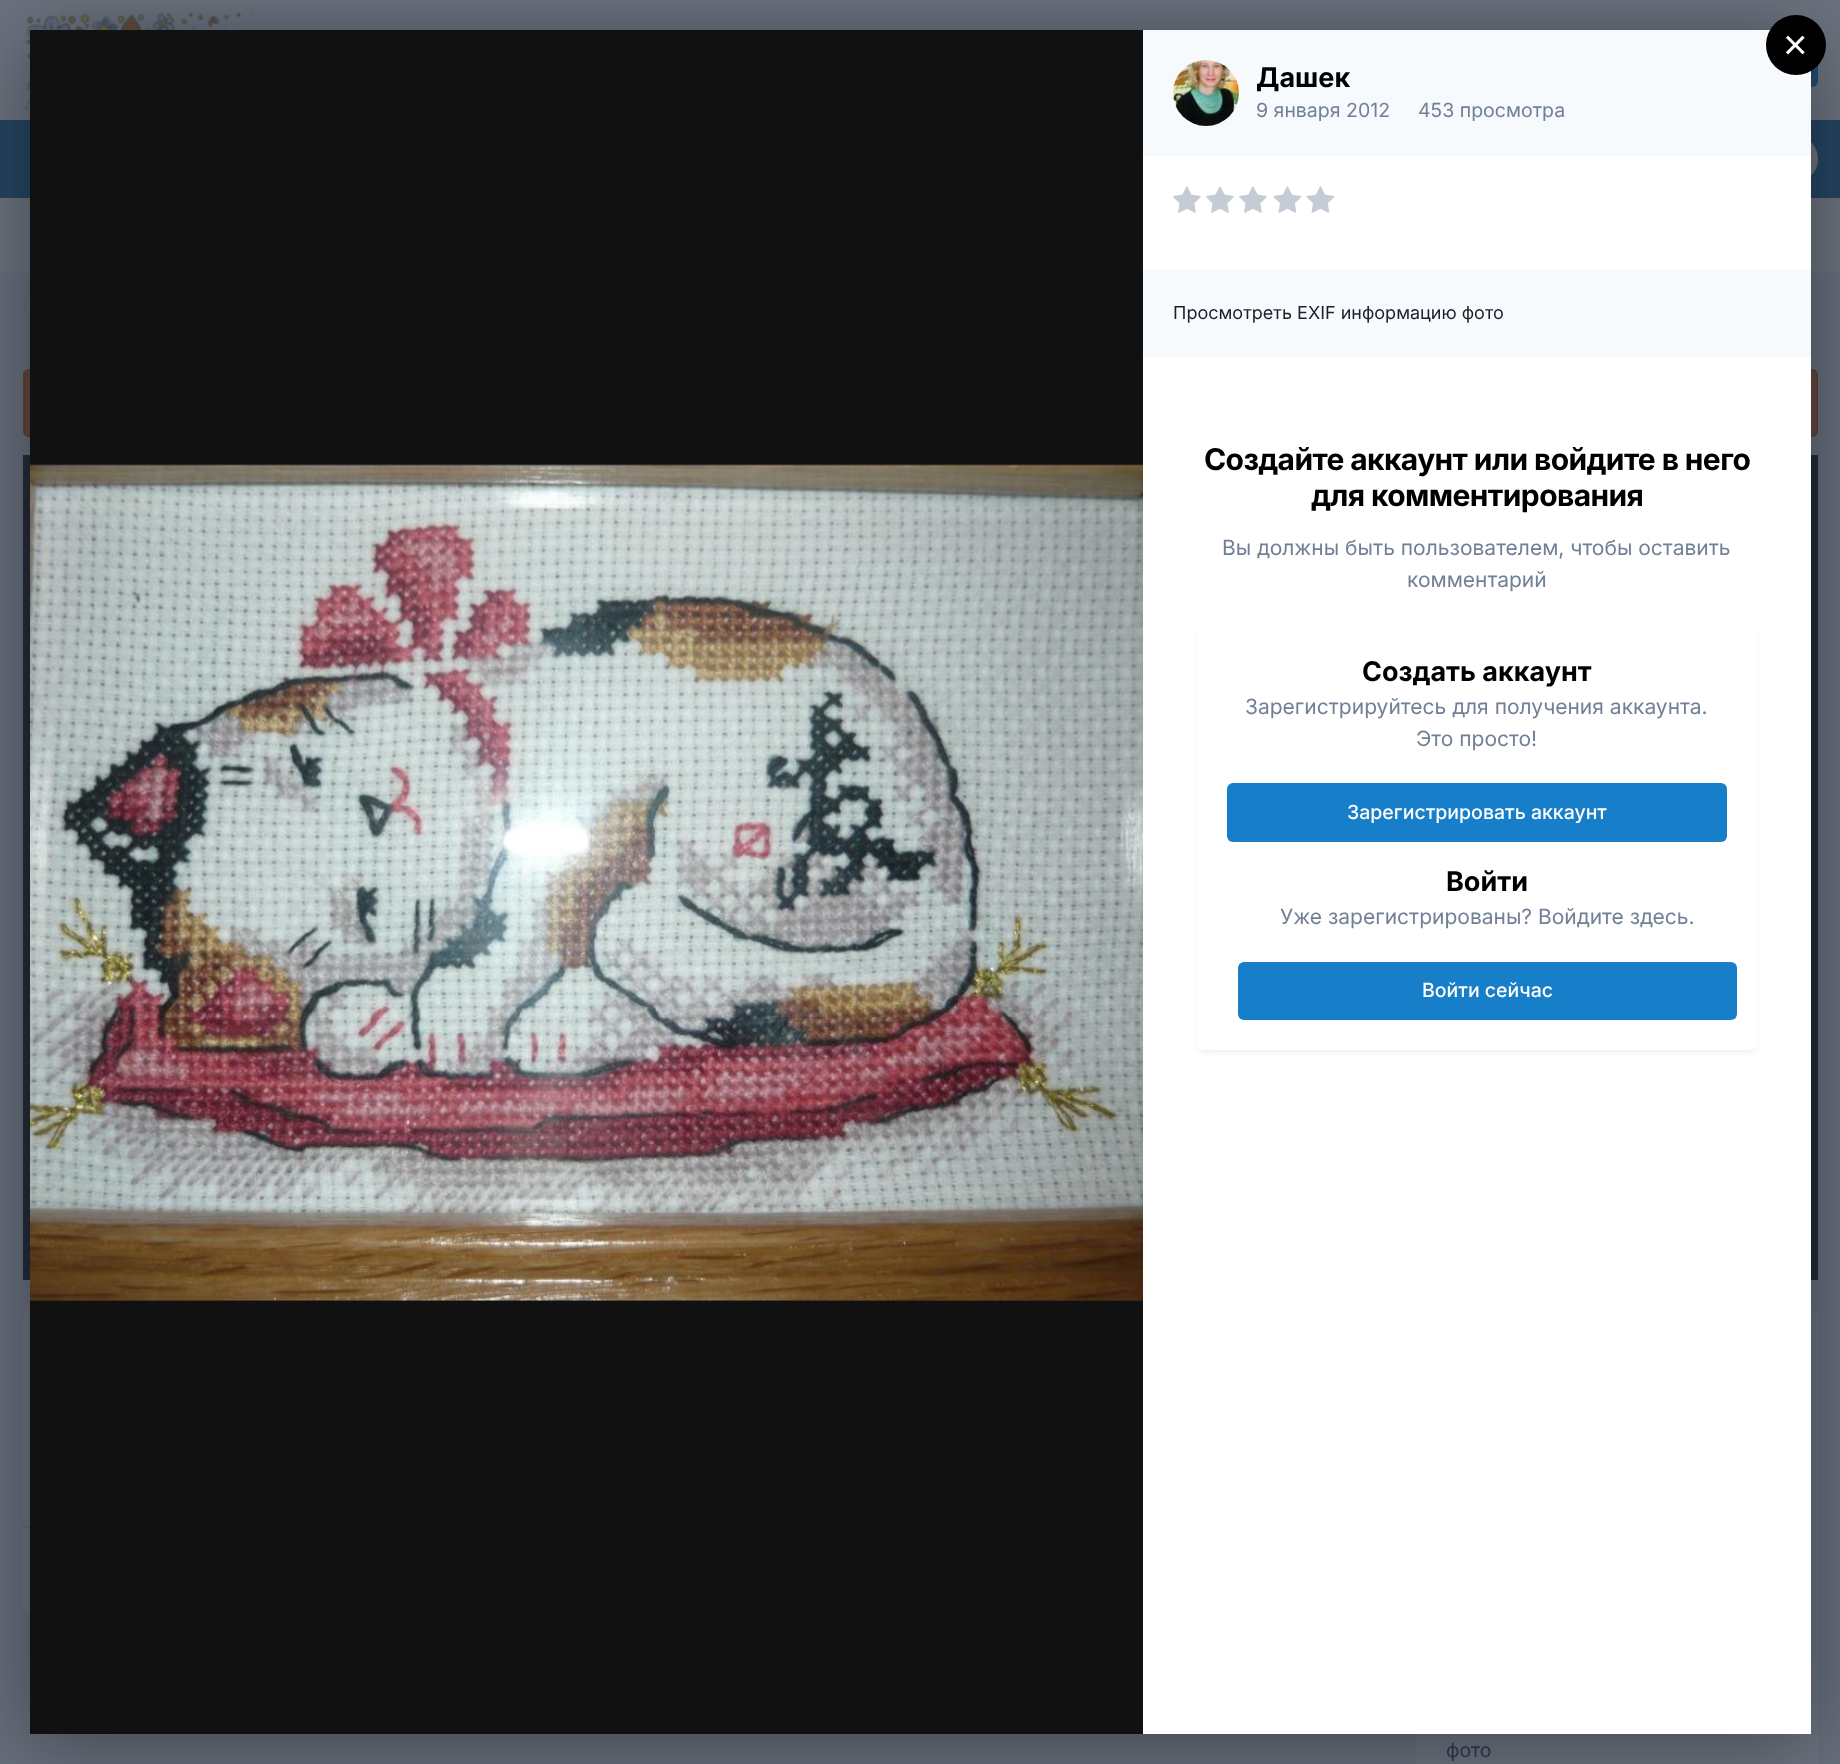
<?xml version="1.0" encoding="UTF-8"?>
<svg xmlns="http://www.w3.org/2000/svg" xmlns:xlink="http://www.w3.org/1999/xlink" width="1840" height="1764">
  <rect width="100%" height="100%" fill="#676f7c" />
  <rect width="1840" height="120" fill="#6c737f" />
  <image x="24" y="13" width="229" height="97" xlink:href="image1.png" />
  <rect x="1632" y="35" width="186" height="52" rx="6" fill="#264c6f" />
  <rect y="120" width="1840" height="78" fill="#254563" />
  <rect x="1428" y="135" width="390" height="48" rx="24" fill="#6c737f" />
  <rect y="198" width="1840" height="75" fill="#6c737f" />
  <rect x="23" y="369" width="1795" height="68" rx="6" fill="#62473c" />
  <path d="M 28 372 h 1784 c 2 0 4 2 4 4 v 57 c 1 -1 1 -2 1 -3 v -54 c 0 -3 -2 -5 -5 -5 h -1783 c -3 0 -5 2 -5 5 c 0 -2 2 -4 4 -4 z" fill="#634b43" />
  <rect x="24" y="370" width="1793" height="66" rx="5" fill="none" stroke="#1f2732" stroke-opacity="0.1" stroke-width="2" />
  <rect x="23" y="455" width="1795" height="825" fill="#252c38" />
  <rect x="23" y="1310" width="1357" height="303" rx="6" fill="#6c737f" />
  <rect x="23" y="1526" width="7" height="2" fill="#666d79" />
  <rect x="1416" y="1310" width="402" height="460" rx="6" fill="#6c737f" />
  <rect x="30" y="38" width="1781" height="1704" fill="#000000" fill-opacity="0.4" filter="blur(41px)" />
  <rect x="1143" y="30" width="668" height="126" fill="#f7fafc" />
  <circle cx="1796" cy="45" r="30" fill="#000000" />
  <rect x="1143" y="156" width="668" height="1578" fill="#ffffff" />
  <circle cx="1206" cy="93" r="33" fill="#ffffff" />
  <image x="1173" y="60" width="66" height="66" xlink:href="image3.png" />
  <image x="1173" y="186" width="28" height="27" xlink:href="image4.png" />
  <image x="1206" y="186" width="28" height="27" xlink:href="image4.png" />
  <image x="1239" y="186" width="28" height="27" xlink:href="image4.png" />
  <image x="1273" y="186" width="29" height="27" xlink:href="image5.png" />
  <image x="1306" y="186" width="29" height="27" xlink:href="image5.png" />
  <rect x="1143" y="269" width="668" height="88" fill="#f7fafc" />
  <rect x="1199" y="629" width="556" height="423" rx="5" fill="#2d3748" fill-opacity="0.1" filter="blur(3px)" />
  <rect x="1197" y="624" width="560" height="426" rx="6" fill="#ffffff" />
  <rect x="1227" y="783" width="500" height="59" rx="6" fill="#177ec9" />
  <rect x="1238" y="962" width="499" height="58" rx="6" fill="#177ec9" />
  <text x="1783" y="59" style="font-family: Liberation Sans; font-size: 42px; fill: #ffffff">×</text>
  <text x="1256" y="87" style="font-family: Inter; font-size: 27px; font-weight: bold; fill: #000000">Дашек</text>
  <text x="1256" y="117" style="font-family: Inter; font-size: 19.5px; fill: #718096">9 января 2012</text>
  <text x="1418" y="117" style="font-family: Inter; font-size: 19.5px; fill: #718096">453 просмотра</text>
  <text x="1173" y="319" style="font-family: Inter; font-size: 18px; fill: #1a202c">Просмотреть EXIF информацию фото</text>
  <text x="1204" y="470" style="font-family: Inter; font-size: 30px; font-weight: bold; letter-spacing: -0.6px; fill: #000000">Создайте аккаунт или войдите в него</text>
  <text x="1311" y="506" style="font-family: Inter; font-size: 30px; font-weight: bold; letter-spacing: -0.6px; fill: #000000">для комментирования</text>
  <text x="1222" y="555" style="font-family: Inter; font-size: 21px; fill: #718096">Вы должны быть пользователем, чтобы оставить</text>
  <text x="1407" y="587" style="font-family: Inter; font-size: 21px; fill: #718096">комментарий</text>
  <text x="1362" y="681" style="font-family: Inter; font-size: 27px; font-weight: bold; fill: #000000">Создать аккаунт</text>
  <text x="1245" y="714" style="font-family: Inter; font-size: 21px; fill: #718096">Зарегистрируйтесь для получения аккаунта.</text>
  <text x="1416" y="746" style="font-family: Inter; font-size: 21px; fill: #718096">Это просто!</text>
  <text x="1347" y="819" style="font-family: Inter; font-size: 19.5px; font-weight: 500; fill: #ffffff">Зарегистрировать аккаунт</text>
  <text x="1446" y="891" style="font-family: Inter; font-size: 27px; font-weight: bold; fill: #000000">Войти</text>
  <text x="1280" y="924" style="font-family: Inter; font-size: 21px; fill: #718096">Уже зарегистрированы? Войдите здесь.</text>
  <text x="1422" y="997" style="font-family: Inter; font-size: 19.5px; font-weight: 500; fill: #ffffff">Войти сейчас</text>
  <text x="23" y="314" style="font-family: Inter; font-size: 19.5px; fill: #4d5768">Г</text>
  <rect x="30" y="30" width="1113" height="1704" fill="#111111" />
  <rect x="30" y="465" width="1113" height="836" fill="#222222" />
  <image x="30" y="464" width="1113" height="837" xlink:href="image2.png" />
  <text x="1446" y="1757" style="font-family: Inter; font-size: 19.5px; fill: #273040">фото</text>
</svg>
